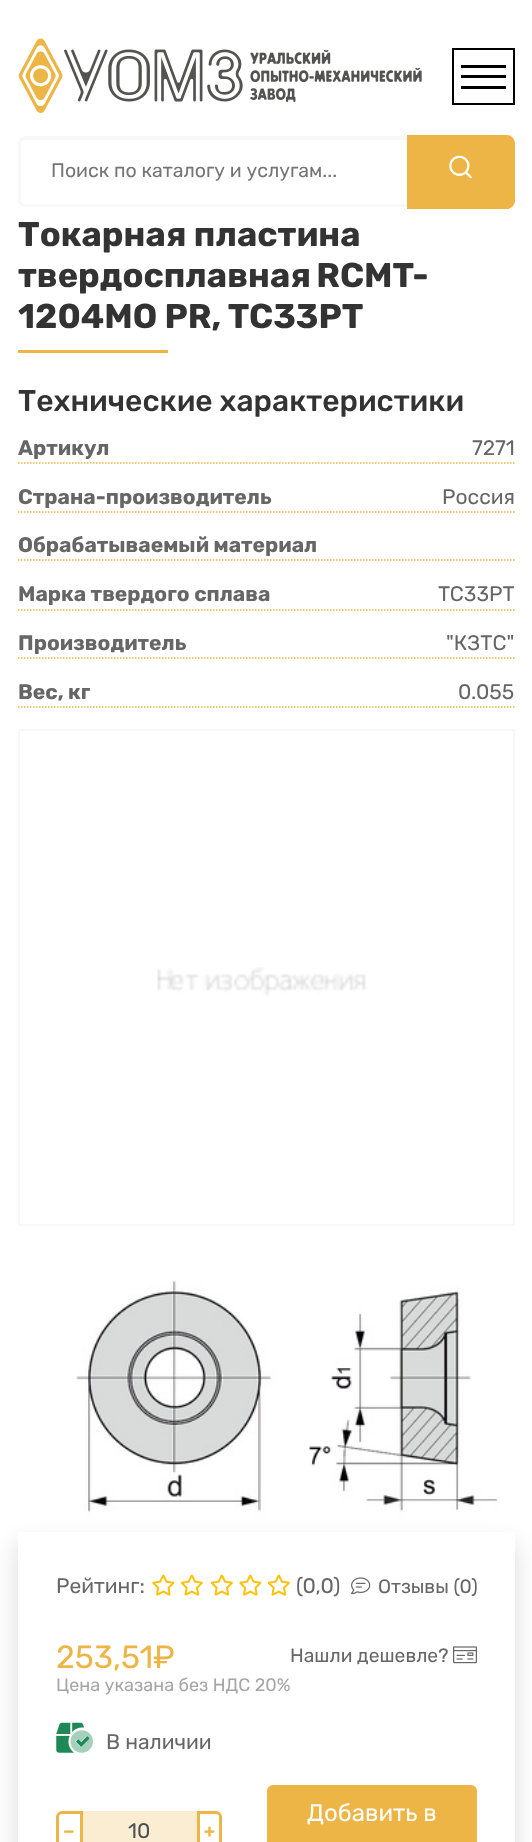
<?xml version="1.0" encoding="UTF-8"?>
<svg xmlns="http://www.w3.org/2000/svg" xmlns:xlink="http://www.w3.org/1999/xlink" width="532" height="1842">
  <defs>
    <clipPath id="clip1"><path d="M 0 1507 h 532 v 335 h -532 z m 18 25 h 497 v 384 h -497 z" clip-rule="evenodd" /></clipPath>
  </defs>
  <rect width="100%" height="100%" fill="#ffffff" />
  <image x="18" y="38" width="404" height="75" xlink:href="image1.png" />
  <rect x="453" y="49" width="61" height="55" fill="none" stroke="#000000" stroke-width="2" />
  <rect x="461" y="65" width="45" height="3" fill="#000000" />
  <rect x="461" y="75" width="45" height="3" fill="#000000" />
  <rect x="461" y="86" width="45" height="3" fill="#000000" />
  <path d="M 26 136 h 481 c 4 0 7 4 7 8 v 56 c 0 4 -3 7 -7 7 h -481 c -5 0 -8 -3 -8 -7 v -56 c 0 -4 3 -8 8 -8 z m 0 4 h 481 c 4 0 7 2 7 4 v 56 c 0 2 -3 4 -7 4 h -481 c -3 0 -5 -2 -5 -4 v -56 c 0 -2 2 -4 5 -4 z" fill="#f8f8f8" fill-rule="evenodd" />
  <path d="M 408.5 136.5 h 98.5 c 3.5 0 6.5 3 6.5 6.5 v 58 c 0 3.5 -3 6.5 -6.5 6.5 h -98.5 z" fill="#edb545" stroke="#edb545" stroke-width="3" />
  <image x="449" y="155" width="23" height="24" xlink:href="image2.png" />
  <rect x="18" y="350" width="150" height="3" fill="#edb545" />
  <path d="M 18 463 h 372" fill="none" stroke="#edb545" stroke-width="1.5" stroke-dasharray="1.5 1.5" />
  <path d="M 390 463 h 124.5" fill="none" stroke="#edb545" stroke-width="1.5" stroke-dasharray="1.5 1.5" />
  <path d="M 18 512 h 372" fill="none" stroke="#edb545" stroke-width="1.5" stroke-dasharray="1.5 1.5" />
  <path d="M 390 512 h 124.5" fill="none" stroke="#edb545" stroke-width="1.5" stroke-dasharray="1.5 1.5" />
  <path d="M 18 560 h 372" fill="none" stroke="#edb545" stroke-width="1.5" stroke-dasharray="1.5 1.5" />
  <path d="M 390 560 h 124.5" fill="none" stroke="#edb545" stroke-width="1.5" stroke-dasharray="1.5 1.5" />
  <path d="M 18 610 h 372" fill="none" stroke="#edb545" stroke-width="1.5" stroke-dasharray="1.5 1.5" />
  <path d="M 390 610 h 124.5" fill="none" stroke="#edb545" stroke-width="1.5" stroke-dasharray="1.5 1.5" />
  <path d="M 18 658 h 372" fill="none" stroke="#edb545" stroke-width="1.5" stroke-dasharray="1.5 1.5" />
  <path d="M 390 658 h 124.5" fill="none" stroke="#edb545" stroke-width="1.5" stroke-dasharray="1.5 1.5" />
  <path d="M 18 707 h 372" fill="none" stroke="#edb545" stroke-width="1.5" stroke-dasharray="1.5 1.5" />
  <path d="M 390 707 h 124.5" fill="none" stroke="#edb545" stroke-width="1.5" stroke-dasharray="1.5 1.5" />
  <rect x="19" y="730" width="495" height="495" fill="none" stroke="#f8f8f8" stroke-width="2" />
  <image x="157" y="967" width="209" height="30" xlink:href="image3.png" />
  <image x="76" y="1280" width="422" height="239" xlink:href="image4.png" />
  <g clip-path="url(#clip1)">
    <rect x="18" y="1544" width="497" height="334" fill="#000000" fill-opacity="0.15" filter="blur(12px)" />
  </g>
  <image x="152" y="1574" width="23" height="22" xlink:href="image5.png" />
  <image x="180" y="1574" width="23" height="22" xlink:href="image6.png" />
  <image x="210" y="1574" width="23" height="22" xlink:href="image6.png" />
  <image x="239" y="1574" width="23" height="22" xlink:href="image5.png" />
  <image x="267" y="1574" width="23" height="22" xlink:href="image6.png" />
  <image x="351" y="1577" width="20" height="18" xlink:href="image7.png" />
  <image x="453" y="1646" width="24" height="18" xlink:href="image8.png" />
  <image x="56" y="1722" width="34" height="31" xlink:href="image9.png" />
  <image x="70" y="1730" width="23" height="23" xlink:href="image10.png" />
  <rect x="267" y="1785" width="210" height="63" rx="6" fill="#edb545" />
  <path d="M 62 1812.5 h 19.5 v 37 h -19.5 c -2.5 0 -4.5 -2 -4.5 -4.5 v -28 c 0 -2.5 2 -4.5 4.5 -4.5 z" fill="none" stroke="#edb545" stroke-width="3" />
  <rect x="83" y="1811" width="114" height="31" fill="#fbedd1" />
  <path d="M 198.5 1812.5 h 17.5 c 2.5 0 4.5 2 4.5 4.5 v 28 c 0 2.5 -2 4.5 -4.5 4.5 h -17.5 z" fill="none" stroke="#edb545" stroke-width="3" />
  <text x="51" y="177" style="font-family: Rubik; font-size: 19.5px; fill: #757575">Поиск по каталогу и услугам...</text>
  <text x="18" y="246" style="font-family: Rubik; font-size: 34.4px; font-weight: bold; fill: #333333">Токарная пластина</text>
  <text x="18" y="287" word-spacing="-2" style="font-family: Rubik; font-size: 34.4px; font-weight: bold; fill: #333333">твердосплавная RCMT-</text>
  <text x="18" y="328" style="font-family: Rubik; font-size: 34.4px; font-weight: bold; fill: #333333">1204MO PR, TC33PT</text>
  <text x="18" y="411" style="font-family: Rubik; font-size: 30px; font-weight: 500; fill: #333333">Технические характеристики</text>
  <text x="18" y="455" style="font-family: Rubik; font-size: 21px; font-weight: bold; fill: #666666">Артикул</text>
  <text x="472" y="455" style="font-family: Rubik; font-size: 21px; fill: #666666">7271</text>
  <text x="18" y="504" style="font-family: Rubik; font-size: 21px; font-weight: bold; fill: #666666">Страна-производитель</text>
  <text x="442" y="504" style="font-family: Rubik; font-size: 21px; fill: #666666">Россия</text>
  <text x="18" y="552" style="font-family: Rubik; font-size: 21px; font-weight: bold; fill: #666666">Обрабатываемый материал</text>
  <text x="18" y="601" style="font-family: Rubik; font-size: 21px; font-weight: bold; fill: #666666">Марка твердого сплава</text>
  <text x="438" y="601" style="font-family: Rubik; font-size: 21px; fill: #666666">TC33PT</text>
  <text x="18" y="650" style="font-family: Rubik; font-size: 21px; font-weight: bold; fill: #666666">Производитель</text>
  <text x="446" y="650" style="font-family: Rubik; font-size: 21px; fill: #666666">"КЗТС"</text>
  <text x="18" y="699" style="font-family: Rubik; font-size: 21px; font-weight: bold; fill: #666666">Вес, кг</text>
  <text x="458" y="699" style="font-family: Rubik; font-size: 21px; fill: #666666">0.055</text>
  <text x="56" y="1593" style="font-family: Rubik; font-size: 21px; fill: #666666">Рейтинг:</text>
  <text x="296" y="1593" style="font-family: Rubik; font-size: 21px; fill: #666666">(0,0)</text>
  <text x="378" y="1593" style="font-family: Rubik; font-size: 19.25px; fill: #666666">Отзывы (0)</text>
  <text x="56" y="1668" style="font-family: Rubik; font-size: 32px; fill: #edb545">253,51₽</text>
  <text x="290" y="1662" style="font-family: Rubik; font-size: 19.25px; fill: #666666">Нашли дешевле?</text>
  <text x="56" y="1691" style="font-family: Rubik; font-size: 18px; fill: #a6a6a6">Цена указана без НДС 20%</text>
  <text x="106" y="1749" style="font-family: Rubik; font-size: 21px; fill: #666666">В наличии</text>
  <text x="307" y="1821" style="font-family: Rubik; font-size: 24px; fill: #ffffff">Добавить в</text>
  <text x="63" y="1837" style="font-family: Rubik; font-size: 18px; font-weight: bold; fill: #edb545">−</text>
  <text x="128" y="1838" style="font-family: Rubik; font-size: 21px; fill: #495057">10</text>
  <text x="204" y="1837" style="font-family: Rubik; font-size: 18px; font-weight: bold; fill: #edb545">+</text>
</svg>
